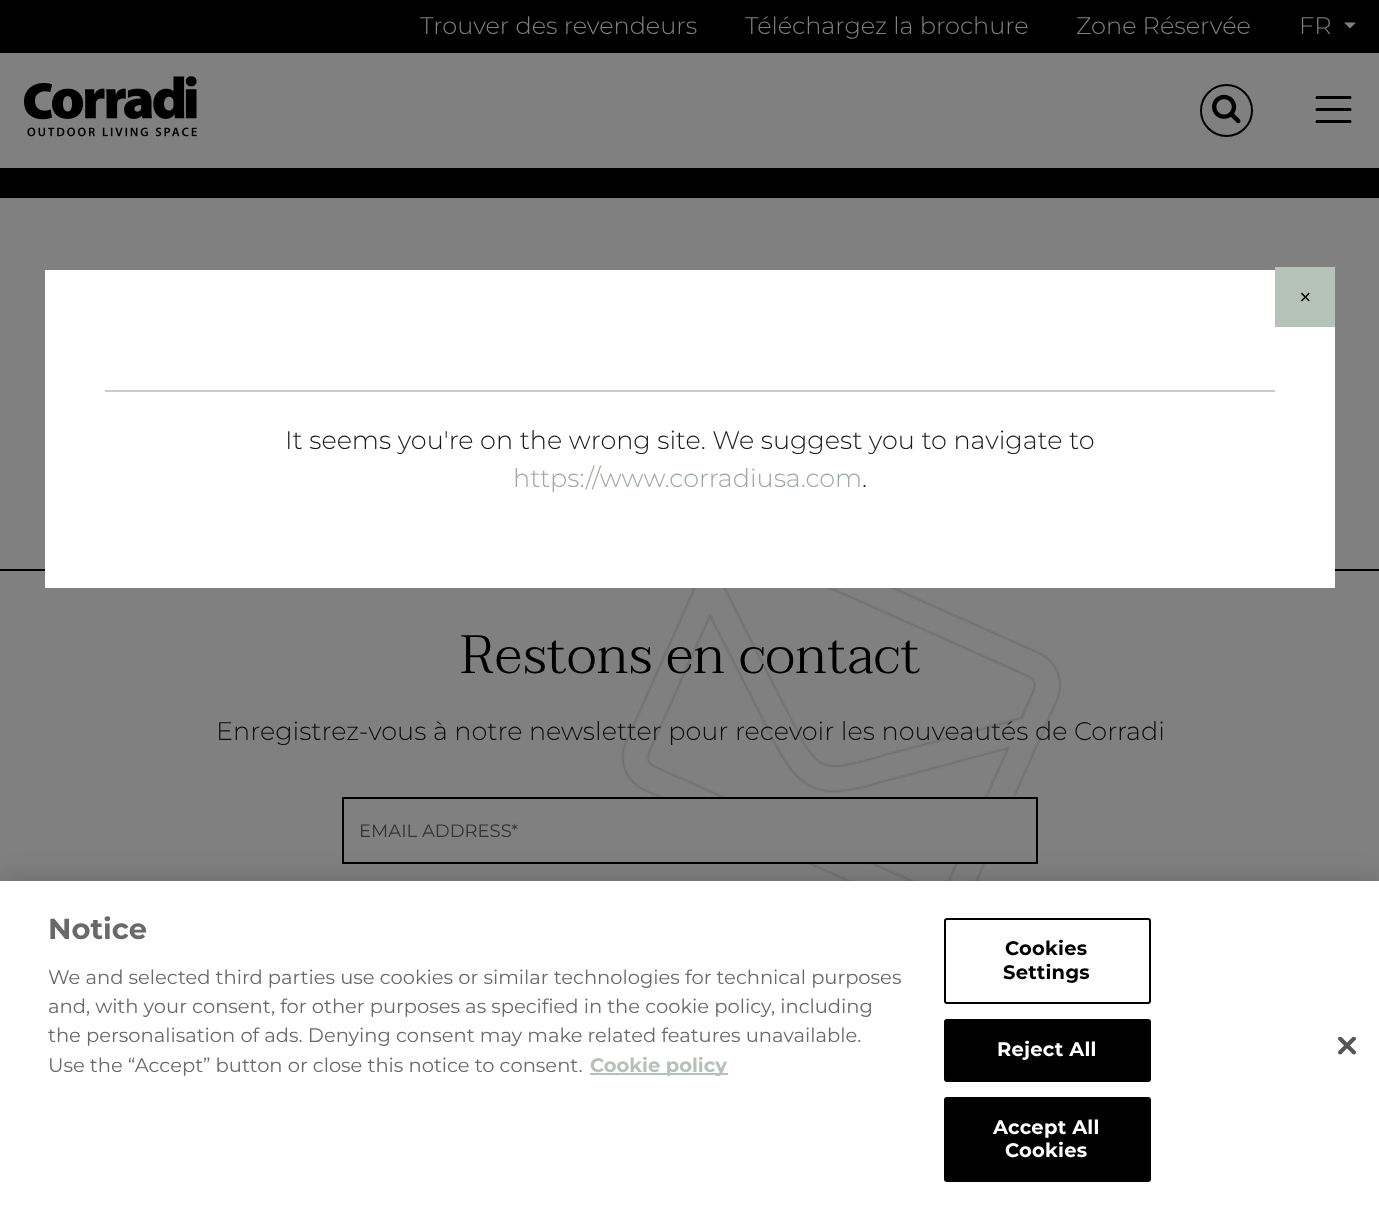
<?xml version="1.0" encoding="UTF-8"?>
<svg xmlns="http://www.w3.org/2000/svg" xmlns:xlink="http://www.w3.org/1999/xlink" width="1379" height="1212">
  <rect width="100%" height="100%" fill="#808080" />
  <rect width="1379" height="53" fill="#000000" />
  <path d="M 1344 22.5 h 12 l -6 6 z" fill="#808080" />
  <image x="24" y="76" width="173" height="61" xlink:href="image1.png" />
  <circle cx="1226.5" cy="110.5" r="25.5" fill="none" stroke="#000000" stroke-width="2" />
  <image x="1212" y="94" width="29" height="30" xlink:href="image2.png" />
  <path d="M 1317 97.5 h 33 m -33 12 h 33 m -33 12 h 33" fill="none" stroke="#000000" stroke-width="3" stroke-linecap="round" />
  <rect y="168" width="1379" height="30" fill="#000000" />
  <image x="621" y="588" width="440" height="293" xlink:href="image3.png" />
  <rect y="569" width="1379" height="2" fill="#000000" />
  <rect x="661" y="799" width="354" height="63" fill="#808080" />
  <rect x="343" y="798" width="694" height="65" fill="none" stroke="#000000" stroke-width="2" />
  <rect x="45" y="270" width="1290" height="318" fill="#ffffff" />
  <rect x="105" y="390" width="1170" height="2" fill="#cccccc" />
  <rect x="1275" y="267" width="60" height="60" fill="#b5c2b8" />
  <rect y="881" width="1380" height="331" fill="#000000" fill-opacity="0.2" filter="blur(13.5px)" />
  <rect y="881" width="1379" height="331" fill="#ffffff" />
  <rect x="590" y="1073" width="138" height="2" fill="#b5c2b8" />
  <rect x="945" y="919" width="205" height="84" rx="2" fill="none" stroke="#000000" stroke-width="2" />
  <rect x="945" y="1020" width="205" height="61" rx="2" fill="#000000" stroke="#000000" stroke-width="2" />
  <rect x="945" y="1098" width="205" height="83" rx="2" fill="#000000" stroke="#000000" stroke-width="2" />
  <image x="1338" y="1037" width="18" height="18" xlink:href="image4.png" />
  <text x="420" y="34" style="font-family: Montserrat; font-size: 24px; font-weight: 300; fill: #808080">Trouver des revendeurs</text>
  <text x="745" y="34" style="font-family: Montserrat; font-size: 24px; font-weight: 300; fill: #808080">Téléchargez la brochure</text>
  <text x="1076" y="34" style="font-family: Montserrat; font-size: 24px; font-weight: 300; fill: #808080">Zone Réservée</text>
  <text x="1299" y="34" style="font-family: Montserrat; font-size: 24px; font-weight: 300; fill: #808080">FR</text>
  <text x="460" y="673" style="font-family: Taviraj; font-size: 54px; font-weight: 300; fill: #000000">Restons en contact</text>
  <text x="216" y="740" style="font-family: Montserrat; font-size: 25.5px; font-weight: 300; fill: #0d0d0d">Enregistrez-vous à notre newsletter pour recevoir les nouveautés de Corradi</text>
  <text x="359" y="837" style="font-family: Montserrat; font-size: 18px; fill: #333333">EMAIL ADDRESS*</text>
  <text x="1298" y="306" style="font-family: Montserrat; font-size: 25.5px; fill: #000000">×</text>
  <text x="285" y="449" style="font-family: Montserrat; font-size: 25.5px; font-weight: 300; fill: #1a1a1a">It seems you're on the wrong site. We suggest you to navigate to</text>
  <text x="513" y="487" style="font-family: Montserrat; font-size: 25.5px; font-weight: 300; fill: #99ab9d">https://www.corradiusa.com</text>
  <text x="862" y="487" style="font-family: Montserrat; font-size: 25.5px; font-weight: 300; fill: #1a1a1a">.</text>
  <text x="48" y="939" style="font-family: Montserrat; font-size: 29px; font-weight: bold; fill: #696969">Notice</text>
  <text x="48" y="984" style="font-family: Montserrat; font-size: 19.5px; fill: #696969">We and selected third parties use cookies or similar technologies for technical purposes</text>
  <text x="48" y="1013" style="font-family: Montserrat; font-size: 19.5px; fill: #696969">and, with your consent, for other purposes as specified in the cookie policy, including</text>
  <text x="48" y="1042" style="font-family: Montserrat; font-size: 19.5px; fill: #696969">the personalisation of ads. Denying consent may make related features unavailable.</text>
  <text x="48" y="1072" style="font-family: Montserrat; font-size: 19.5px; fill: #696969">Use the “Accept” button or close this notice to consent.</text>
  <text x="590" y="1072" style="font-family: Montserrat; font-size: 19.5px; font-weight: bold; fill: #b5c2b8">Cookie policy</text>
  <text x="1005" y="955" style="font-family: Montserrat; font-size: 19.5px; font-weight: bold; letter-spacing: 0.25px; fill: #000000">Cookies</text>
  <text x="1003" y="979" style="font-family: Montserrat; font-size: 19.5px; font-weight: bold; letter-spacing: 0.25px; fill: #000000">Settings</text>
  <text x="997" y="1056" style="font-family: Montserrat; font-size: 19.5px; font-weight: bold; letter-spacing: 0.25px; fill: #ffffff">Reject All</text>
  <text x="993" y="1134" style="font-family: Montserrat; font-size: 19.5px; font-weight: bold; letter-spacing: 0.25px; fill: #ffffff">Accept All</text>
  <text x="1005" y="1157" style="font-family: Montserrat; font-size: 19.5px; font-weight: bold; letter-spacing: 0.25px; fill: #ffffff">Cookies</text>
</svg>
